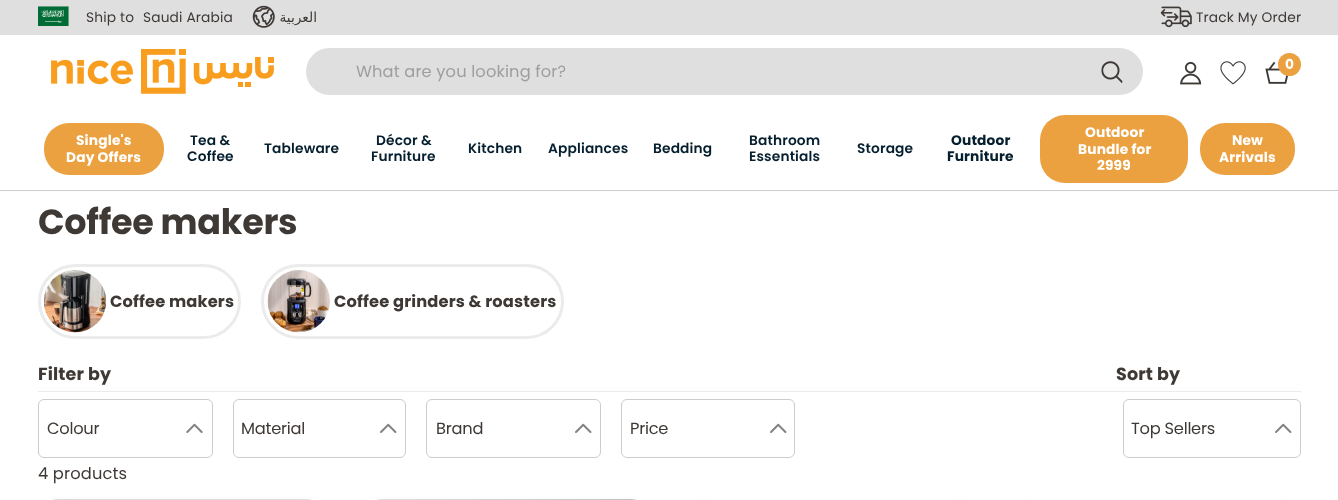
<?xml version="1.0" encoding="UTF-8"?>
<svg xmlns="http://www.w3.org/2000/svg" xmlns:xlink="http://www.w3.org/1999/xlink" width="1338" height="500">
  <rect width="100%" height="100%" fill="#ffffff" />
  <rect width="1338" height="35" fill="#dfdfe0" />
  <image x="38" y="6" width="31" height="20" xlink:href="image1.png" />
  <image x="252" y="5" width="23" height="23" xlink:href="image2.png" />
  <image x="1160" y="6" width="32" height="22" xlink:href="image3.png" />
  <image x="51" y="49" width="223" height="45" xlink:href="image4.png" />
  <rect x="306" y="48" width="837" height="47" rx="23.5" fill="#dfdfe0" />
  <image x="1101" y="61" width="22" height="23" xlink:href="image5.png" />
  <image x="1180" y="61" width="22" height="24" xlink:href="image6.png" />
  <image x="1220" y="61" width="26" height="24" xlink:href="image7.png" />
  <image x="1265" y="61" width="24" height="23" xlink:href="image8.png" />
  <circle cx="1289.5" cy="64.5" r="11.5" fill="#eba140" />
  <rect y="190" width="1338" height="1" fill="#cccccc" />
  <rect x="44" y="123" width="120" height="52" rx="25" fill="#eba140" />
  <rect x="1040" y="115" width="148" height="68" rx="25" fill="#eba140" />
  <rect x="1200" y="123" width="95" height="52" rx="25" fill="#eba140" />
  <rect x="39.5" y="265.5" width="200" height="72" rx="36" fill="none" stroke="#ebebeb" stroke-width="3" />
  <image x="43" y="270" width="64" height="63" xlink:href="image9.png" />
  <rect x="262.5" y="265.5" width="300" height="72" rx="36" fill="none" stroke="#ebebeb" stroke-width="3" />
  <image x="267" y="270" width="63" height="63" xlink:href="image10.png" />
  <rect x="38" y="391" width="1263" height="1" fill="#ebebeb" />
  <rect x="38.5" y="399.5" width="174" height="58" rx="5.5" fill="none" stroke="#cccccc" />
  <image x="186" y="423" width="17" height="10" xlink:href="image11.png" />
  <rect x="233.5" y="399.5" width="172" height="58" rx="5.5" fill="none" stroke="#cccccc" />
  <image x="380" y="423" width="17" height="10" xlink:href="image12.png" />
  <rect x="426.5" y="399.5" width="174" height="58" rx="5.5" fill="none" stroke="#cccccc" />
  <image x="575" y="423" width="17" height="10" xlink:href="image12.png" />
  <rect x="621.5" y="399.5" width="173" height="58" rx="5.5" fill="none" stroke="#cccccc" />
  <image x="770" y="423" width="17" height="10" xlink:href="image12.png" />
  <rect x="1123.5" y="399.5" width="177" height="58" rx="5.5" fill="none" stroke="#cccccc" />
  <image x="1275" y="423" width="17" height="10" xlink:href="image12.png" />
  <image x="52" y="499" width="260" height="1" xlink:href="image13.png" />
  <image x="377" y="499" width="260" height="1" xlink:href="image14.png" />
  <rect x="695" y="499" width="274" height="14" rx="13" fill="#f9f9f9" />
  <image x="706" y="499" width="252" height="1" xlink:href="image15.png" />
  <rect x="1021" y="499" width="273" height="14" rx="13" fill="#f9f9f9" />
  <image x="1032" y="499" width="251" height="1" xlink:href="image16.png" />
  <text x="86" y="22" style="font-family: Poppins; font-size: 13.75px; letter-spacing: 0.15px; fill: #3f3936">Ship to</text>
  <text x="143" y="22" style="font-family: Poppins; font-size: 13.75px; letter-spacing: 0.15px; fill: #3f3936">Saudi Arabia</text>
  <text x="317" y="22" style="font-family: DejaVu Sans; font-size: 13.75px; letter-spacing: 0.15px; direction: rtl; fill: #3f3936">العربية</text>
  <text x="1196" y="22" style="font-family: Poppins; font-size: 13.75px; letter-spacing: 0.15px; fill: #3f3936">Track My Order</text>
  <text x="356" y="77" style="font-family: Poppins; font-size: 16.25px; letter-spacing: 0.15px; fill: #9e9e9e">What are you looking for?</text>
  <text x="1285" y="69" style="font-family: Poppins; font-size: 13.75px; font-weight: bold; letter-spacing: 0.15px; fill: #ffffff">0</text>
  <text x="76" y="145" style="font-family: Poppins; font-size: 13.75px; font-weight: bold; letter-spacing: 0.15px; fill: #ffffff">Single's</text>
  <text x="66" y="162" style="font-family: Poppins; font-size: 13.75px; font-weight: bold; letter-spacing: 0.15px; fill: #ffffff">Day Offers</text>
  <text x="190" y="145" style="font-family: Poppins; font-size: 13.75px; font-weight: 600; letter-spacing: 0.15px; fill: #051f2f">Tea &amp;</text>
  <text x="187" y="161" style="font-family: Poppins; font-size: 13.75px; font-weight: 600; letter-spacing: 0.15px; fill: #051f2f">Coffee</text>
  <text x="264" y="153" style="font-family: Poppins; font-size: 13.75px; font-weight: 600; letter-spacing: 0.15px; fill: #051f2f">Tableware</text>
  <text x="376" y="145" style="font-family: Poppins; font-size: 13.75px; font-weight: 600; letter-spacing: 0.15px; fill: #051f2f">Décor &amp;</text>
  <text x="371" y="161" style="font-family: Poppins; font-size: 13.75px; font-weight: 600; letter-spacing: 0.15px; fill: #051f2f">Furniture</text>
  <text x="468" y="153" style="font-family: Poppins; font-size: 13.75px; font-weight: 600; letter-spacing: 0.15px; fill: #051f2f">Kitchen</text>
  <text x="548" y="153" style="font-family: Poppins; font-size: 13.75px; font-weight: 600; letter-spacing: 0.15px; fill: #051f2f">Appliances</text>
  <text x="653" y="153" style="font-family: Poppins; font-size: 13.75px; font-weight: 600; letter-spacing: 0.15px; fill: #051f2f">Bedding</text>
  <text x="749" y="145" style="font-family: Poppins; font-size: 13.75px; font-weight: 600; letter-spacing: 0.15px; fill: #051f2f">Bathroom</text>
  <text x="749" y="161" style="font-family: Poppins; font-size: 13.75px; font-weight: 600; letter-spacing: 0.15px; fill: #051f2f">Essentials</text>
  <text x="857" y="153" style="font-family: Poppins; font-size: 13.75px; font-weight: 600; letter-spacing: 0.15px; fill: #051f2f">Storage</text>
  <text x="951" y="145" style="font-family: Poppins; font-size: 13.75px; font-weight: bold; letter-spacing: 0.15px; fill: #051f2f">Outdoor</text>
  <text x="947" y="161" style="font-family: Poppins; font-size: 13.75px; font-weight: bold; letter-spacing: 0.15px; fill: #051f2f">Furniture</text>
  <text x="1085" y="137" style="font-family: Poppins; font-size: 13.75px; font-weight: bold; letter-spacing: 0.15px; fill: #ffffff">Outdoor</text>
  <text x="1078" y="154" style="font-family: Poppins; font-size: 13.75px; font-weight: bold; letter-spacing: 0.15px; fill: #ffffff">Bundle for</text>
  <text x="1097" y="170" style="font-family: Poppins; font-size: 13.75px; font-weight: bold; letter-spacing: 0.15px; fill: #ffffff">2999</text>
  <text x="1232" y="145" style="font-family: Poppins; font-size: 13.75px; font-weight: bold; letter-spacing: 0.15px; fill: #ffffff">New</text>
  <text x="1219" y="162" style="font-family: Poppins; font-size: 13.75px; font-weight: bold; letter-spacing: 0.15px; fill: #ffffff">Arrivals</text>
  <text x="38" y="234" style="font-family: Poppins; font-size: 35px; font-weight: bold; letter-spacing: -0.3px; fill: #3f3936">Coffee makers</text>
  <text x="110" y="307" style="font-family: Poppins; font-size: 16.25px; font-weight: bold; letter-spacing: 0.15px; fill: #3f3936">Coffee makers</text>
  <text x="334" y="307" style="font-family: Poppins; font-size: 16.25px; font-weight: bold; letter-spacing: 0.15px; fill: #3f3936">Coffee grinders &amp; roasters</text>
  <text x="38" y="380" style="font-family: Poppins; font-size: 17.5px; font-weight: bold; letter-spacing: 0.15px; fill: #3f3936">Filter by</text>
  <text x="1116" y="380" style="font-family: Poppins; font-size: 17.5px; font-weight: bold; letter-spacing: 0.15px; fill: #3f3936">Sort by</text>
  <text x="47" y="434" style="font-family: Poppins; font-size: 16.25px; letter-spacing: -0.25px; fill: #3f3936">Colour</text>
  <text x="241" y="434" style="font-family: Poppins; font-size: 16.25px; letter-spacing: -0.25px; fill: #3f3936">Material</text>
  <text x="436" y="434" style="font-family: Poppins; font-size: 16.25px; letter-spacing: -0.25px; fill: #3f3936">Brand</text>
  <text x="630" y="434" style="font-family: Poppins; font-size: 16.25px; letter-spacing: -0.25px; fill: #3f3936">Price</text>
  <text x="1131" y="434" style="font-family: Poppins; font-size: 16.25px; letter-spacing: -0.25px; fill: #3f3936">Top Sellers</text>
  <text x="38" y="479" style="font-family: Poppins; font-size: 16.25px; letter-spacing: 0.15px; fill: #3f3936">4 products</text>
</svg>
